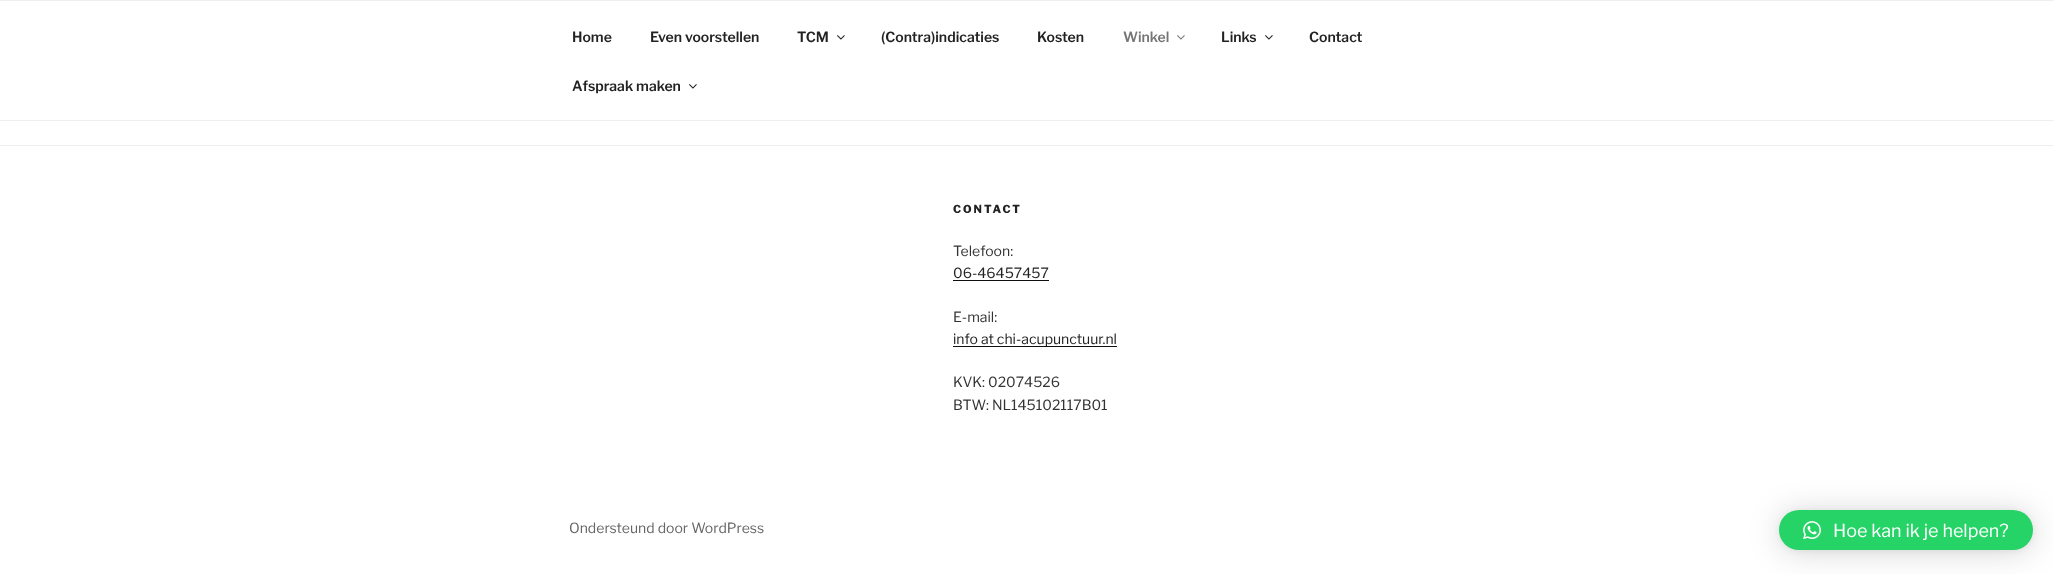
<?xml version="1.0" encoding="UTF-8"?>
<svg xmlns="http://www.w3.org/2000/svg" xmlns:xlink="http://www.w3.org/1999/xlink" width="2053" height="574">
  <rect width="100%" height="100%" fill="#ffffff" />
  <rect width="2053" height="1" fill="#eeeeee" />
  <rect y="120" width="2053" height="1" fill="#eeeeee" />
  <image x="837" y="35" width="8" height="5" xlink:href="image1.png" />
  <image x="1177" y="35" width="8" height="5" xlink:href="image2.png" />
  <image x="1265" y="35" width="8" height="5" xlink:href="image1.png" />
  <image x="689" y="84" width="8" height="5" xlink:href="image1.png" />
  <rect y="145" width="2053" height="1" fill="#eeeeee" />
  <rect x="953" y="280" width="96" height="1" fill="#0f0f0f" />
  <rect x="953" y="346" width="164" height="1" fill="#0f0f0f" />
  <rect x="1779" y="512" width="254" height="40" rx="20" fill="#000000" fill-opacity="0.16" filter="blur(16px)" />
  <rect x="1779" y="511" width="254" height="40" rx="20" fill="#000000" fill-opacity="0.06" filter="blur(3px)" />
  <rect x="1779" y="510" width="254" height="40" rx="20" fill="#25d366" />
  <image x="1803" y="521" width="18" height="19" xlink:href="image3.png" />
  <text x="572" y="42" style="font-family: Libre Franklin; font-size: 14px; font-weight: 600; fill: #222222">Home</text>
  <text x="650" y="42" style="font-family: Libre Franklin; font-size: 14px; font-weight: 600; fill: #222222">Even voorstellen</text>
  <text x="797" y="42" style="font-family: Libre Franklin; font-size: 14px; font-weight: 600; fill: #222222">TCM</text>
  <text x="881" y="42" style="font-family: Libre Franklin; font-size: 14px; font-weight: 600; fill: #222222">(Contra)indicaties</text>
  <text x="1037" y="42" style="font-family: Libre Franklin; font-size: 14px; font-weight: 600; fill: #222222">Kosten</text>
  <text x="1123" y="42" style="font-family: Libre Franklin; font-size: 14px; font-weight: 600; fill: #767676">Winkel</text>
  <text x="1221" y="42" style="font-family: Libre Franklin; font-size: 14px; font-weight: 600; fill: #222222">Links</text>
  <text x="1309" y="42" style="font-family: Libre Franklin; font-size: 14px; font-weight: 600; fill: #222222">Contact</text>
  <text x="572" y="91" style="font-family: Libre Franklin; font-size: 14px; font-weight: 600; fill: #222222">Afspraak maken</text>
  <text x="953" y="213" style="font-family: Libre Franklin; font-size: 11px; font-weight: 800; letter-spacing: 2px; fill: #222222">CONTACT</text>
  <text x="953" y="256" style="font-family: Libre Franklin; font-size: 14px; fill: #333333">Telefoon:</text>
  <text x="953" y="278" style="font-family: Libre Franklin; font-size: 14px; fill: #222222">06-46457457</text>
  <text x="953" y="322" style="font-family: Libre Franklin; font-size: 14px; fill: #333333">E-mail:</text>
  <text x="953" y="344" style="font-family: Libre Franklin; font-size: 14px; fill: #222222">info at chi-acupunctuur.nl</text>
  <text x="953" y="387" style="font-family: Libre Franklin; font-size: 14px; fill: #333333">KVK: 02074526</text>
  <text x="953" y="410" style="font-family: Libre Franklin; font-size: 14px; fill: #333333">BTW: NL145102117B01</text>
  <text x="569" y="533" style="font-family: Libre Franklin; font-size: 14px; fill: #666666">Ondersteund door WordPress</text>
  <text x="1833" y="537" style="font-family: Libre Franklin; font-size: 18px; fill: #ffffff">Hoe kan ik je helpen?</text>
</svg>
